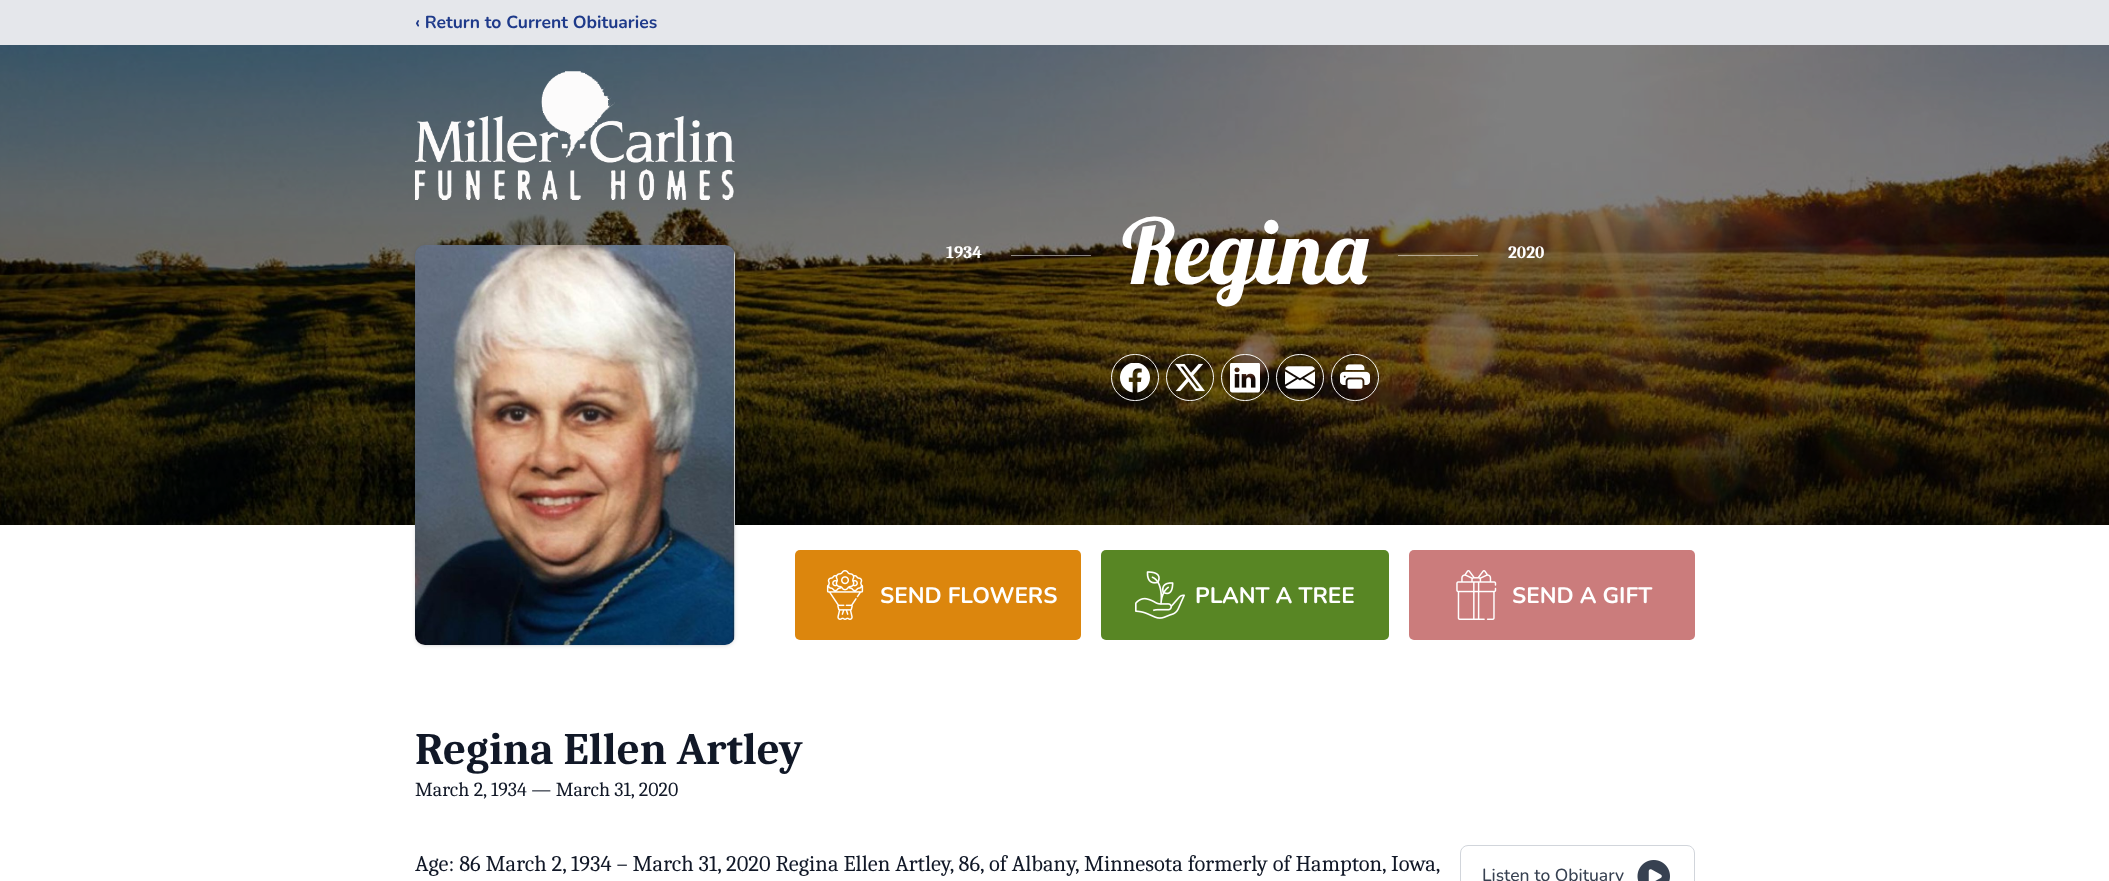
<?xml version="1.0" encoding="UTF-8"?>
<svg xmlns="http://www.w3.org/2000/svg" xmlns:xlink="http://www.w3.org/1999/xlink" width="2109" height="881">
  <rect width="100%" height="100%" fill="#ffffff" />
  <rect width="2109" height="45" fill="#e5e7eb" />
  <image x="0" y="45" width="2109" height="480" xlink:href="image1.png" />
  <image x="415" y="71" width="320" height="129" xlink:href="image2.png" />
  <rect x="416" y="248" width="318" height="397" rx="9" fill="#000000" fill-opacity="0.1" filter="blur(1px)" />
  <rect x="415" y="246" width="320" height="400" rx="10" fill="#000000" fill-opacity="0.1" filter="blur(2px)" />
  <image x="415" y="245" width="320" height="400" xlink:href="image3.png" />
  <rect x="1011" y="255" width="80" height="1" fill="#ffffff" fill-opacity="0.5" />
  <rect x="1398" y="255" width="80" height="1" fill="#ffffff" fill-opacity="0.5" />
  <rect x="1111.5" y="354.5" width="47" height="46" rx="23" fill="none" stroke="#ffffff" />
  <circle cx="1135.5" cy="377.5" r="22.5" fill="#000000" fill-opacity="0.2" />
  <image x="1120" y="363" width="30" height="30" xlink:href="image4.png" />
  <rect x="1166.5" y="354.5" width="47" height="46" rx="23" fill="none" stroke="#ffffff" />
  <circle cx="1190.5" cy="377.5" r="22.5" fill="#000000" fill-opacity="0.2" />
  <image x="1175" y="363" width="30" height="29" xlink:href="image5.png" />
  <rect x="1221.5" y="354.5" width="47" height="46" rx="23" fill="none" stroke="#ffffff" />
  <circle cx="1245.5" cy="377.5" r="22.5" fill="#000000" fill-opacity="0.2" />
  <image x="1230" y="363" width="30" height="30" xlink:href="image6.png" />
  <rect x="1276.5" y="354.5" width="47" height="46" rx="23" fill="none" stroke="#ffffff" />
  <circle cx="1300.5" cy="377.5" r="22.5" fill="#000000" fill-opacity="0.2" />
  <image x="1285" y="366" width="30" height="23" xlink:href="image7.png" />
  <rect x="1331.5" y="354.5" width="47" height="46" rx="23" fill="none" stroke="#ffffff" />
  <circle cx="1355.5" cy="377.5" r="22.5" fill="#000000" fill-opacity="0.2" />
  <image x="1340" y="364" width="30" height="25" xlink:href="image8.png" />
  <rect x="795" y="550" width="286" height="90" rx="5" fill="#dc860d" />
  <image x="826" y="570" width="38" height="50" xlink:href="image9.png" />
  <rect x="1101" y="550" width="288" height="90" rx="5" fill="#588624" />
  <image x="1135" y="571" width="50" height="48" xlink:href="image10.png" />
  <rect x="1409" y="550" width="286" height="90" rx="5" fill="#cb7c7c" />
  <image x="1456" y="570" width="41" height="50" xlink:href="image11.png" />
  <rect x="1460.5" y="845.5" width="234" height="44" rx="7.5" fill="none" stroke="#d1d5db" />
  <image x="1637" y="860" width="33" height="21" xlink:href="image12.png" />
  <text x="415" y="28" style="font-family: Nunito; font-size: 17.5px; font-weight: bold; fill: #1e3a8a">‹ Return to Current Obituaries</text>
  <text x="946" y="258" style="font-family: Caladea; font-size: 17.5px; font-weight: bold; fill: #ffffff">1934</text>
  <text x="1122" y="284" style="font-family: Lobster; font-size: 90px; fill: #ffffff">Regina</text>
  <text x="1508" y="258" style="font-family: Caladea; font-size: 17.5px; font-weight: bold; fill: #ffffff">2020</text>
  <text x="880" y="603" style="font-family: Nunito; font-size: 22.5px; font-weight: bold; fill: #ffffff">SEND FLOWERS</text>
  <text x="1195" y="603" style="font-family: Nunito; font-size: 22.5px; font-weight: bold; fill: #ffffff">PLANT A TREE</text>
  <text x="1512" y="603" style="font-family: Nunito; font-size: 22.5px; font-weight: bold; fill: #ffffff">SEND A GIFT</text>
  <text x="415" y="764" style="font-family: Caladea; font-size: 45px; font-weight: bold; fill: #111827">Regina Ellen Artley</text>
  <text x="415" y="796" style="font-family: Caladea; font-size: 20px; fill: #111827">March 2, 1934 — March 31, 2020</text>
  <text x="415" y="871" style="font-family: Caladea; font-size: 22.5px; fill: #111827">Age: 86 March 2, 1934 – March 31, 2020 Regina Ellen Artley, 86, of Albany, Minnesota formerly of Hampton, Iowa,</text>
  <text x="1482" y="881" style="font-family: Nunito; font-size: 17.5px; font-weight: 500; fill: #374151">Listen to Obituary</text>
</svg>
